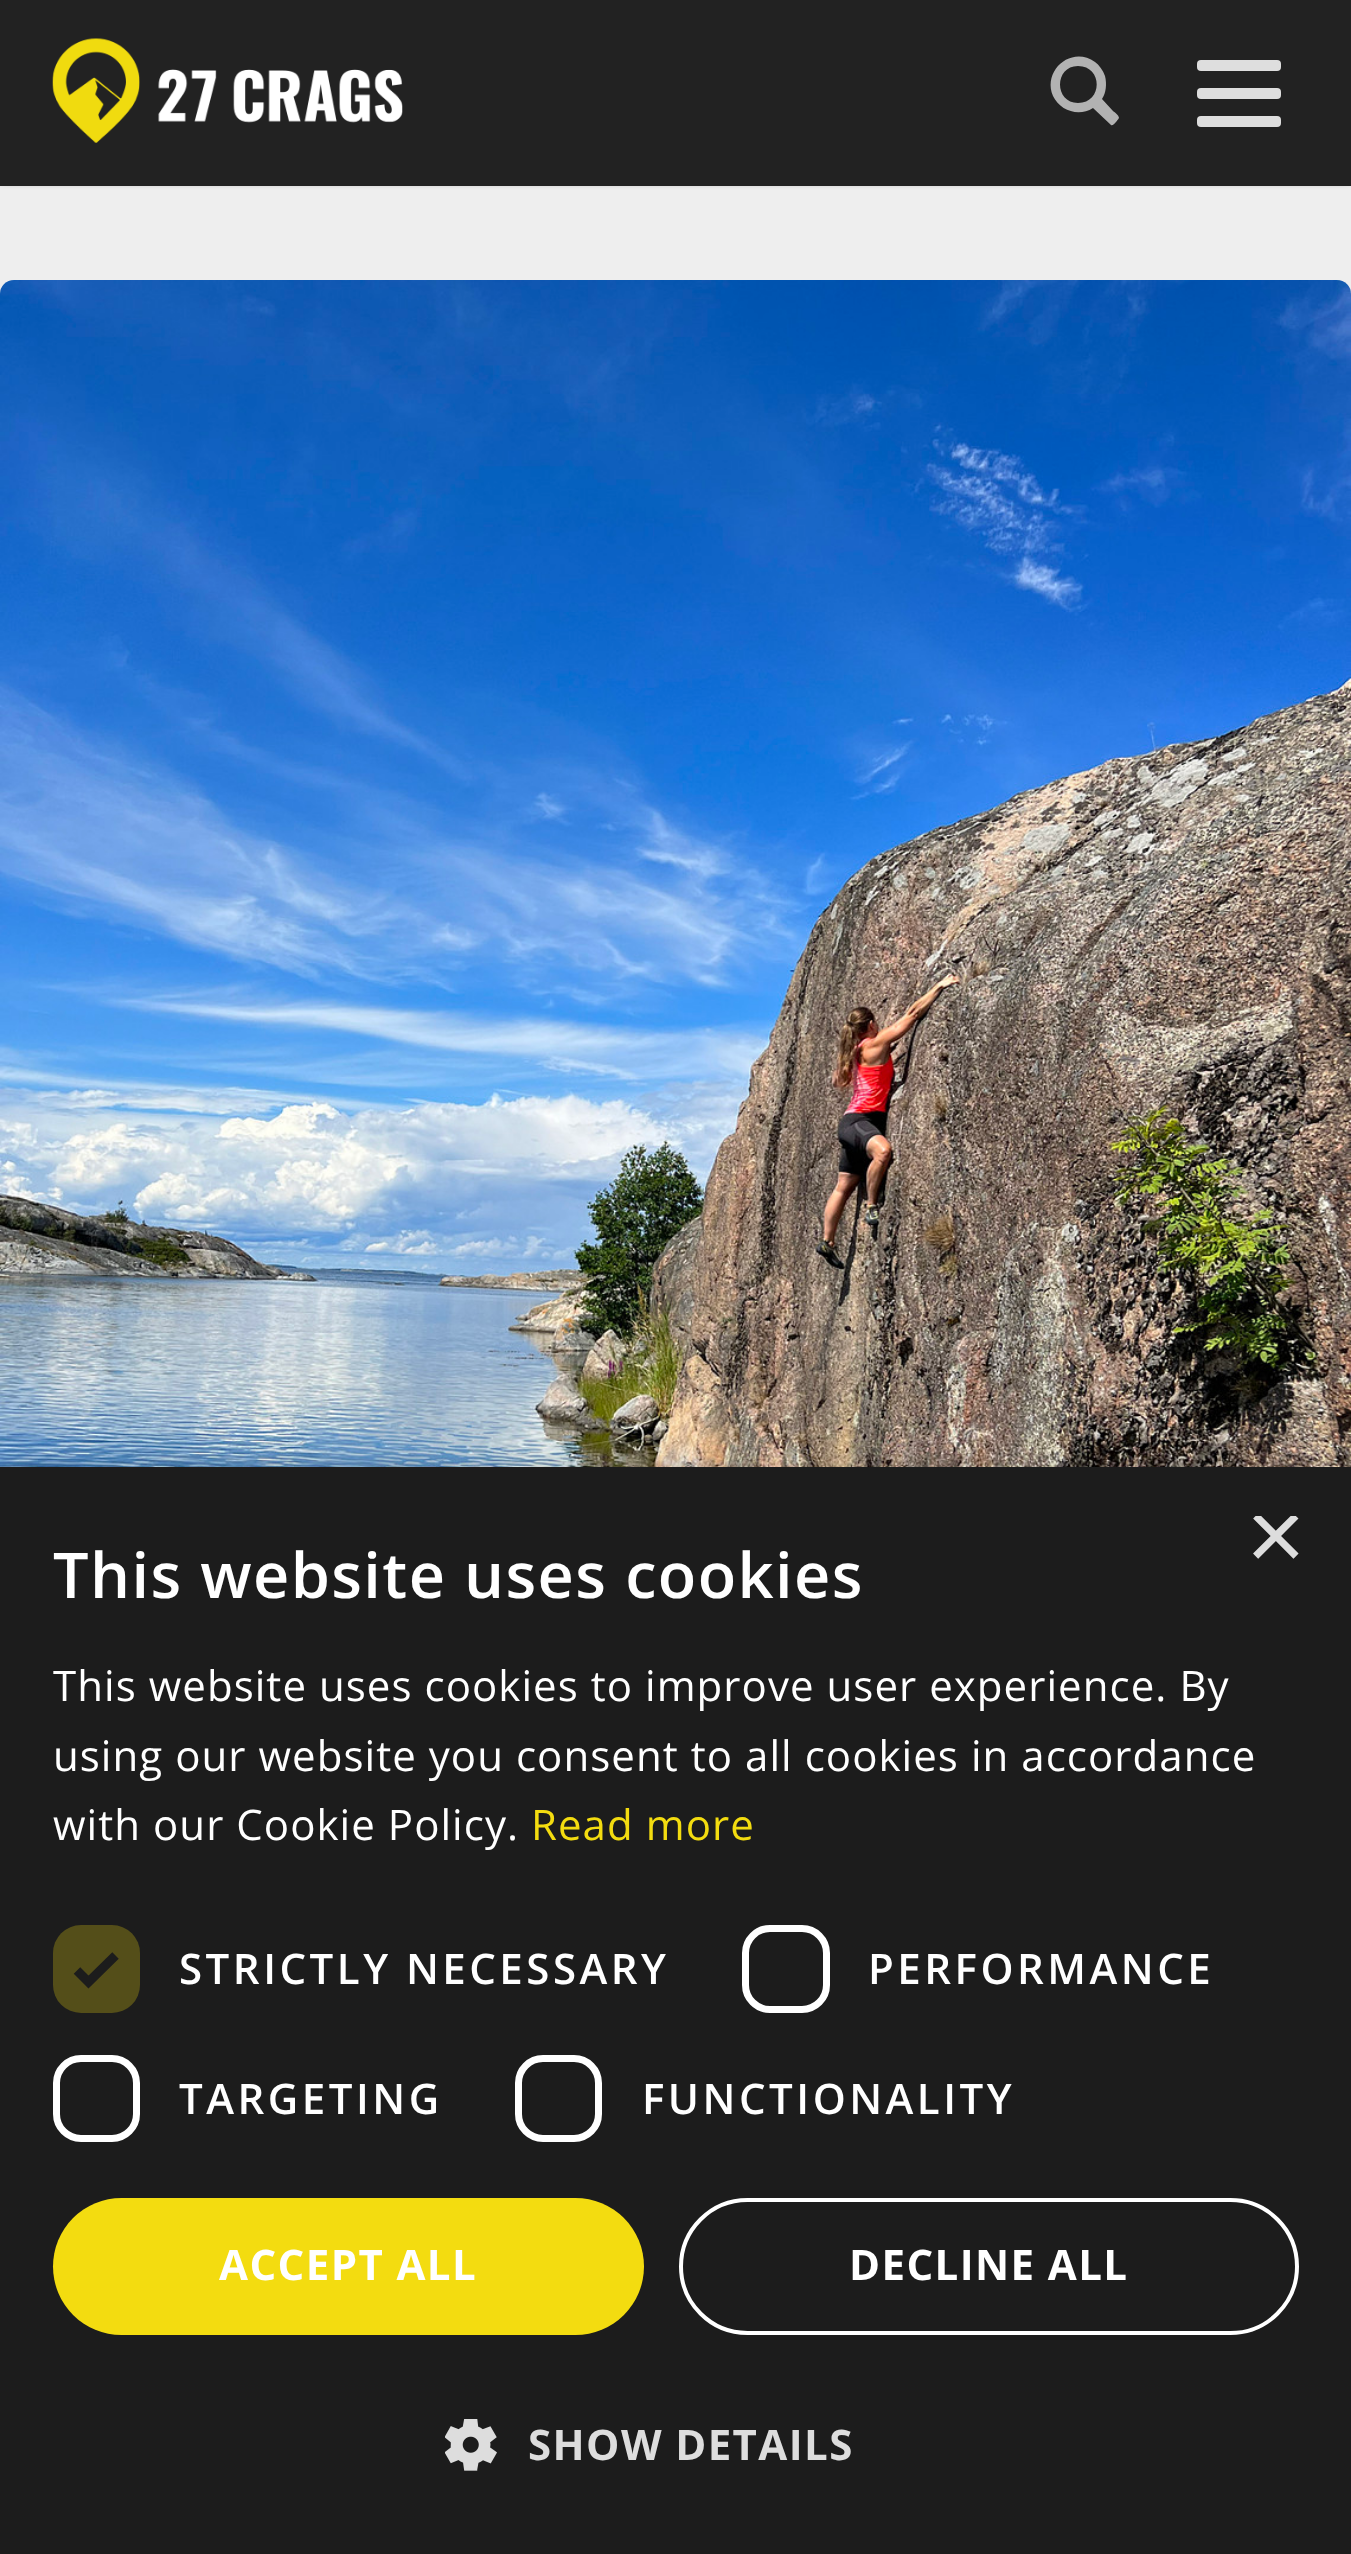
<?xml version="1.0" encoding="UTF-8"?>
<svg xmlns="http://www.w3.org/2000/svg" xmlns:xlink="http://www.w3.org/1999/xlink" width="1351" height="2554">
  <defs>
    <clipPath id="clip1"><rect x="1246" y="1516" width="53" height="52" /></clipPath>
  </defs>
  <rect width="100%" height="100%" fill="#eeeeee" />
  <rect y="4" width="1351" height="175" fill="#010101" filter="blur(5px)" />
  <rect width="1351" height="186" fill="#222222" />
  <image x="52" y="38" width="351" height="105" xlink:href="image1.png" />
  <path d="M 1111 125 l -18 -17 c -14 9 -33 3 -40 -12 c -11 -26 19 -51 42 -34 c 4 3 8 8 10 14 c 2 8 1 17 -3 23 l 11 12 c 1 1 6 4 6 7 c 0 0 -6 9 -8 7 z m -33 -22 c 25 0 25 -37 0 -37 c -24 0 -24 37 0 37 z" fill="#b2b2b2" />
  <rect x="1197" y="60" width="84" height="11" rx="4" fill="#dedede" />
  <rect x="1197" y="88" width="84" height="11" rx="4" fill="#dedede" />
  <rect x="1197" y="116" width="84" height="11" rx="4" fill="#dedede" />
  <image x="0" y="280" width="1351" height="1187" xlink:href="image2.png" />
  <rect x="4" y="1474" width="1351" height="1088" fill="#000000" fill-opacity="0.35" filter="blur(14px)" />
  <rect y="1467" width="1351" height="1087" fill="#1c1c1c" />
  <rect x="53" y="1925" width="87" height="88" rx="28" fill="#544e19" />
  <path d="M 77 1970.5 l 11.5 11.5 l 27 -26.5" fill="none" stroke="#1c1c1c" stroke-width="9.2" />
  <rect x="745.5" y="1928.5" width="81" height="81" rx="24.5" fill="none" stroke="#ffffff" stroke-width="7" />
  <rect x="56.5" y="2058.5" width="80" height="80" rx="24.5" fill="none" stroke="#ffffff" stroke-width="7" />
  <rect x="518.5" y="2058.5" width="80" height="80" rx="24.5" fill="none" stroke="#ffffff" stroke-width="7" />
  <rect x="53" y="2198" width="591" height="137" rx="68.5" fill="#f3dc10" />
  <rect x="681" y="2200" width="616" height="133" rx="66.5" fill="none" stroke="#ffffff" stroke-width="4" />
  <image x="445" y="2419" width="52" height="52" xlink:href="image3.png" />
  <g clip-path="url(#clip1)">
    <text x="1246" y="1570" style="font-family: Liberation Sans; font-size: 102px; fill: #dddddd">×</text>
  </g>
  <text x="53" y="1598" style="font-family: Open Sans; font-size: 63px; font-weight: 600; letter-spacing: 1.4px; fill: #ffffff">This website uses cookies</text>
  <text x="53" y="1701" style="font-family: Open Sans; font-size: 42px; letter-spacing: 1.05px; fill: #ffffff">This website uses cookies to improve user experience. By</text>
  <text x="53" y="1771" style="font-family: Open Sans; font-size: 42px; letter-spacing: 1.05px; fill: #ffffff">using our website you consent to all cookies in accordance</text>
  <text x="53" y="1840" style="font-family: Open Sans; font-size: 42px; letter-spacing: 1.05px; fill: #ffffff">with our Cookie Policy.</text>
  <text x="531" y="1840" style="font-family: Open Sans; font-size: 42px; letter-spacing: 1.05px; fill: #f3dc10">Read more</text>
  <text x="179" y="1984" style="font-family: Open Sans; font-size: 42px; font-weight: 600; letter-spacing: 3.5px; fill: #ffffff">STRICTLY NECESSARY</text>
  <text x="868" y="1984" style="font-family: Open Sans; font-size: 42px; font-weight: 600; letter-spacing: 3.5px; fill: #ffffff">PERFORMANCE</text>
  <text x="179" y="2114" style="font-family: Open Sans; font-size: 42px; font-weight: 600; letter-spacing: 3.5px; fill: #ffffff">TARGETING</text>
  <text x="642" y="2114" style="font-family: Open Sans; font-size: 42px; font-weight: 600; letter-spacing: 3.5px; fill: #ffffff">FUNCTIONALITY</text>
  <text x="219" y="2280" style="font-family: Open Sans; font-size: 42px; font-weight: bold; letter-spacing: 1.4px; fill: #ffffff">ACCEPT ALL</text>
  <text x="849" y="2280" style="font-family: Open Sans; font-size: 42px; font-weight: bold; letter-spacing: 1.4px; fill: #ffffff">DECLINE ALL</text>
  <text x="528" y="2460" style="font-family: Open Sans; font-size: 42px; font-weight: bold; letter-spacing: 1.4px; fill: #dddddd">SHOW DETAILS</text>
</svg>
